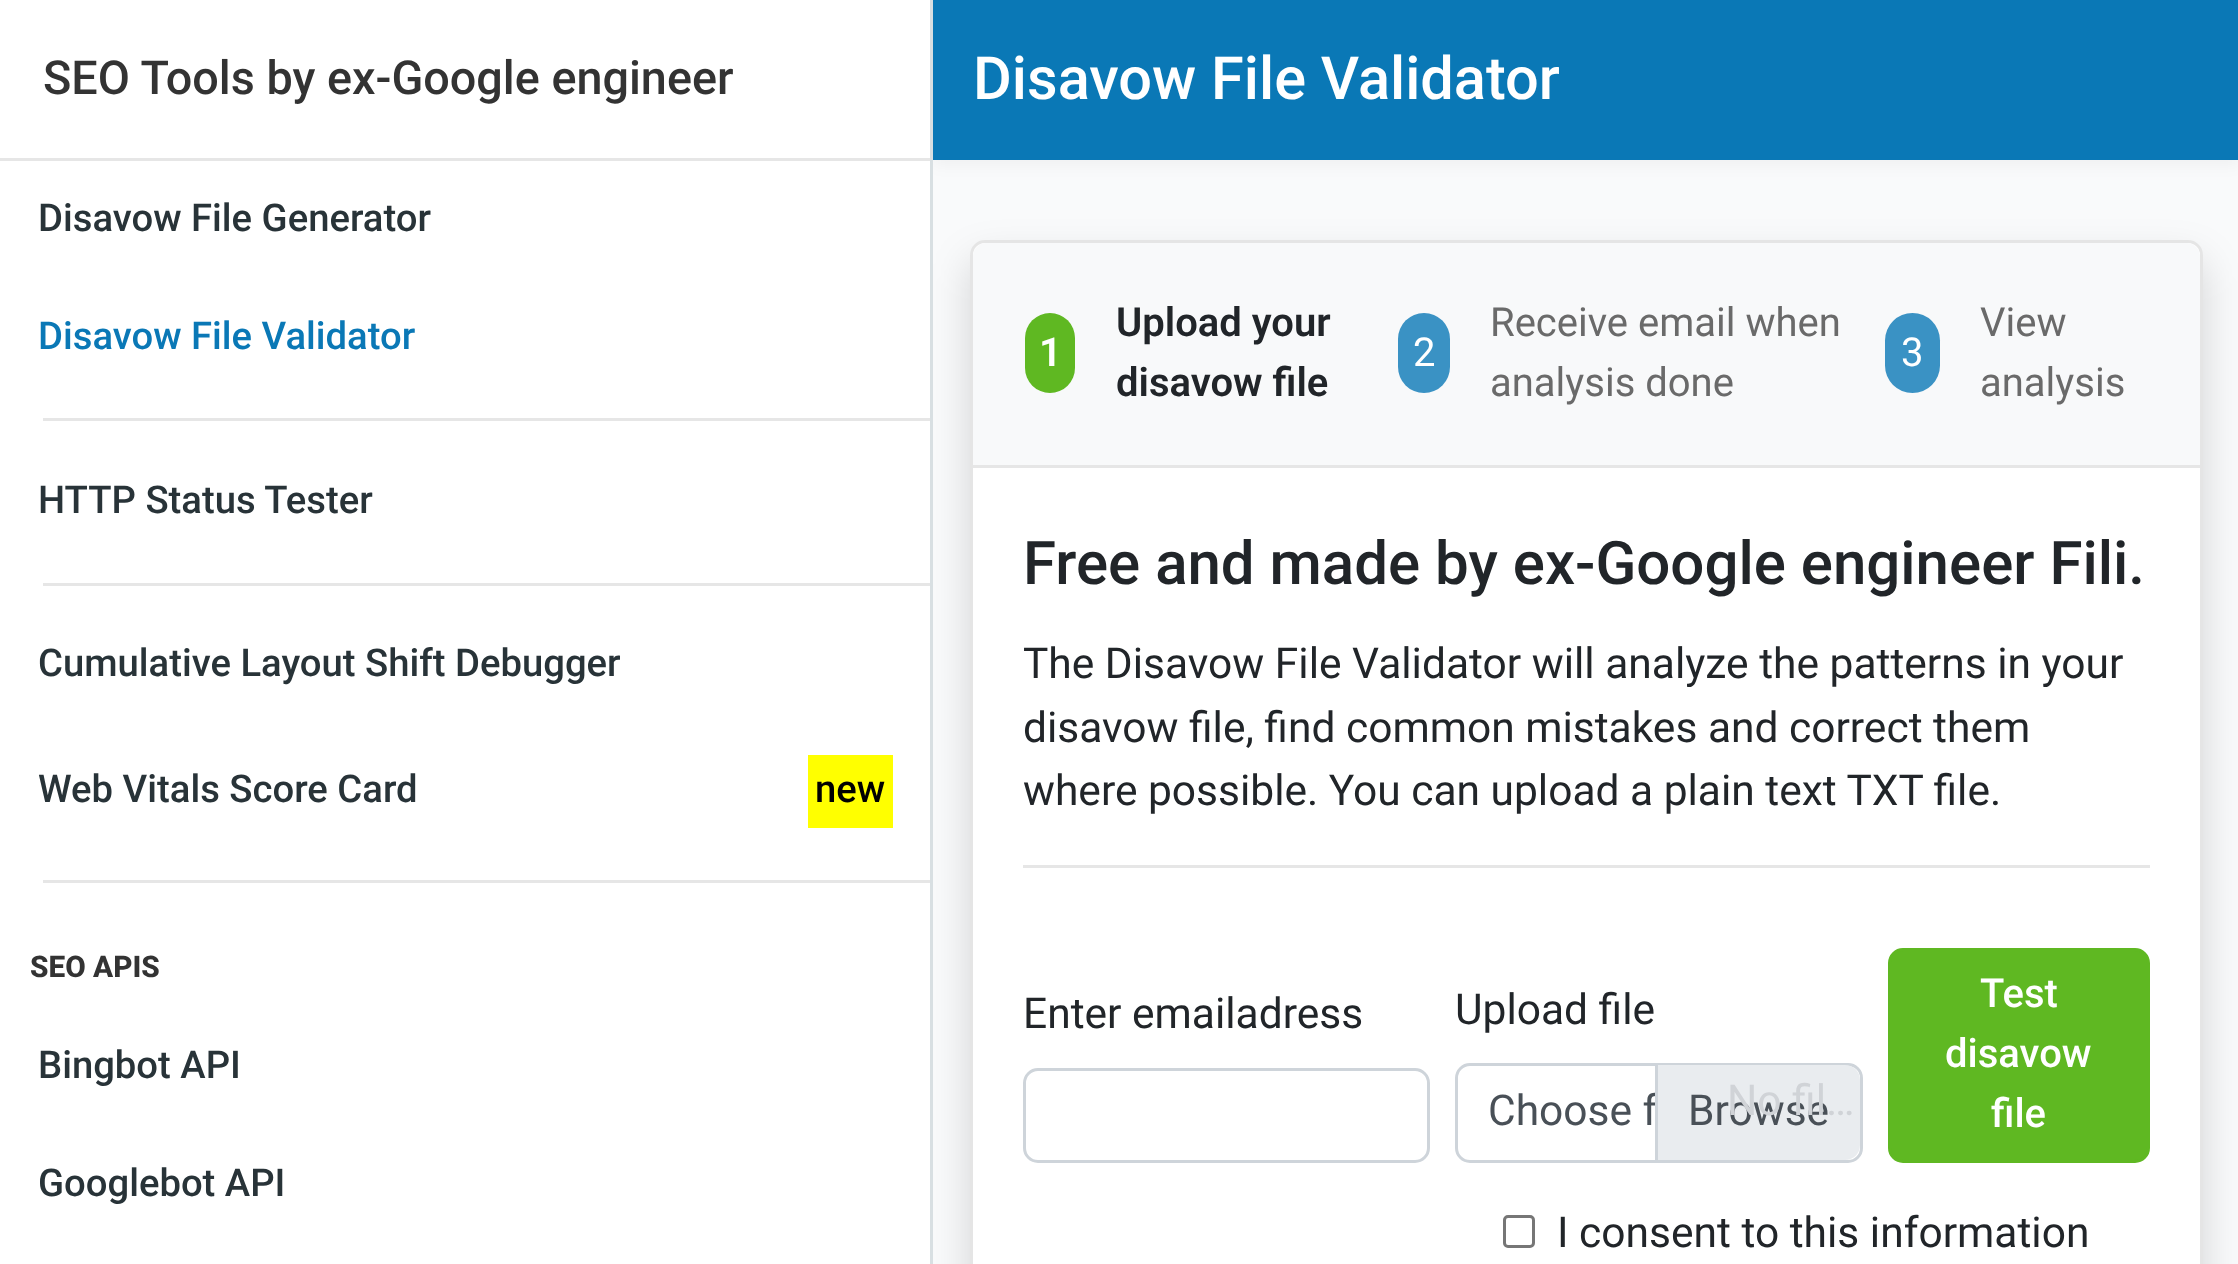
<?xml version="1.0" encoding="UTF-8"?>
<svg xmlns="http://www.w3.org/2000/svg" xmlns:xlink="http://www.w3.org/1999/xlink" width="2238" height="1264">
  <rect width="100%" height="100%" fill="#f9fafb" />
  <rect x="933" y="5" width="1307" height="160" fill="#000000" fill-opacity="0.04" filter="blur(7.5px)" />
  <rect x="970" y="260" width="1233" height="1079" rx="15" fill="#000000" fill-opacity="0.15" filter="blur(20px)" />
  <rect width="930" height="1264" fill="#ffffff" />
  <rect x="930" width="3" height="1264" fill="#d8dfe2" />
  <rect y="158" width="930" height="3" fill="#e6e6e6" />
  <rect x="43" y="418" width="887" height="3" fill="#e6e6e6" />
  <rect x="43" y="583" width="887" height="3" fill="#e6e6e6" />
  <rect x="808" y="755" width="85" height="73" fill="#ffff00" />
  <rect x="43" y="880" width="887" height="3" fill="#e6e6e6" />
  <rect x="933" width="1305" height="160" fill="#0a78b6" />
  <rect x="970" y="240" width="1233" height="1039" rx="15" fill="#ffffff" />
  <rect x="971.5" y="241.5" width="1230" height="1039" rx="13.5" fill="none" stroke="#000000" stroke-opacity="0.1" stroke-width="3" />
  <path d="M 986 243 h 1201 c 7 0 13 6 13 13 v 212 h -1227 v -212 c 0 -7 6 -13 13 -13 z" fill="#f8f9fa" />
  <rect x="973" y="465" width="1227" height="3" fill="#e6e6e6" />
  <rect x="1025" y="313" width="50" height="80" rx="25" fill="#5fb822" />
  <rect x="1398" y="313" width="52" height="80" rx="26" fill="#3a92c4" />
  <rect x="1885" y="313" width="55" height="80" rx="27.5" fill="#3a92c4" />
  <rect x="1023" y="865" width="1127" height="3" fill="#e6e6e6" />
  <rect x="1024.5" y="1069.5" width="404" height="92" rx="13.5" fill="none" stroke="#ced4da" stroke-width="3" />
  <rect x="1456.5" y="1064.5" width="405" height="97" rx="13.5" fill="none" stroke="#ced4da" stroke-width="3" />
  <rect x="1889.5" y="949.5" width="259" height="212" rx="13.5" fill="#5fb822" stroke="#5fb822" stroke-width="3" />
  <rect x="1504.5" y="1216.5" width="29" height="30" rx="3.5" fill="none" stroke="#767676" stroke-width="3" />
  <text x="43" y="94" style="font-family: Roboto; font-size: 46.75px; font-weight: 500; fill: #333333">SEO Tools by ex-Google engineer</text>
  <text x="38" y="231" style="font-family: Roboto; font-size: 38.25px; font-weight: 500; fill: #283338">Disavow File Generator</text>
  <text x="38" y="349" style="font-family: Roboto; font-size: 38.25px; font-weight: 500; fill: #0a78b6">Disavow File Validator</text>
  <text x="38" y="513" style="font-family: Roboto; font-size: 38.25px; font-weight: 500; fill: #283338">HTTP Status Tester</text>
  <text x="38" y="676" style="font-family: Roboto; font-size: 38.25px; font-weight: 500; fill: #283338">Cumulative Layout Shift Debugger</text>
  <text x="38" y="802" style="font-family: Roboto; font-size: 38.25px; font-weight: 500; fill: #283338">Web Vitals Score Card</text>
  <text x="815" y="802" style="font-family: Roboto; font-size: 38.25px; font-weight: 500; fill: #000000">new</text>
  <text x="30" y="977" style="font-family: Roboto; font-size: 29.75px; font-weight: 800; fill: #333333">SEO APIS</text>
  <text x="38" y="1078" style="font-family: Roboto; font-size: 38.25px; font-weight: 500; fill: #283338">Bingbot API</text>
  <text x="38" y="1196" style="font-family: Roboto; font-size: 38.25px; font-weight: 500; fill: #283338">Googlebot API</text>
  <text x="973" y="99" style="font-family: Roboto; font-size: 59.5px; font-weight: 500; fill: #ffffff">Disavow File Validator</text>
  <text x="1116" y="336" style="font-family: Roboto; font-size: 40px; font-weight: 600; fill: #212529">Upload your</text>
  <text x="1039" y="366" style="font-family: Roboto; font-size: 40px; font-weight: 600; fill: #ffffff">1</text>
  <text x="1116" y="396" style="font-family: Roboto; font-size: 40px; font-weight: 600; fill: #212529">disavow file</text>
  <text x="1490" y="336" style="font-family: Roboto; font-size: 40px; fill: #6a6a6a">Receive email when</text>
  <text x="1413" y="366" style="font-family: Roboto; font-size: 40px; fill: #ffffff">2</text>
  <text x="1490" y="396" style="font-family: Roboto; font-size: 40px; fill: #6a6a6a">analysis done</text>
  <text x="1980" y="336" style="font-family: Roboto; font-size: 40px; fill: #6a6a6a">View</text>
  <text x="1901" y="366" style="font-family: Roboto; font-size: 40px; fill: #ffffff">3</text>
  <text x="1980" y="396" style="font-family: Roboto; font-size: 40px; fill: #6a6a6a">analysis</text>
  <text x="1023" y="584" style="font-family: Roboto; font-size: 60px; font-weight: 500; fill: #212529">Free and made by ex-Google engineer Fili.</text>
  <text x="1023" y="678" style="font-family: Roboto; font-size: 42.5px; fill: #212529">The Disavow File Validator will analyze the patterns in your</text>
  <text x="1023" y="742" style="font-family: Roboto; font-size: 42.5px; fill: #212529">disavow file, find common mistakes and correct them</text>
  <text x="1023" y="805" style="font-family: Roboto; font-size: 42.5px; fill: #212529">where possible. You can upload a plain text TXT file.</text>
  <text x="1023" y="1028" style="font-family: Roboto; font-size: 42.5px; fill: #212529">Enter emailadress</text>
  <text x="1455" y="1024" style="font-family: Roboto; font-size: 42.5px; fill: #212529">Upload file</text>
  <text x="1488" y="1125" style="font-family: Roboto; font-size: 42.5px; fill: #495057">Choose f</text>
  <path d="M 1655 1065 h 190 c 8.5 0 15 6.5 15 15 v 65 c 0 8.5 -6.5 15 -15 15 h -190 z" fill="#e9ecef" />
  <rect x="1655" y="1065" width="3" height="95" fill="#ced4da" />
  <text x="1688" y="1125" style="font-family: Roboto; font-size: 42.5px; fill: #495057">Browse</text>
  <text x="1727" y="1115" style="font-family: Roboto; font-size: 42.5px; fill: #d0d3d7">No fil…</text>
  <text x="1980" y="1007" style="font-family: Roboto; font-size: 40px; font-weight: 500; fill: #ffffff">Test</text>
  <text x="1945" y="1067" style="font-family: Roboto; font-size: 40px; font-weight: 500; fill: #ffffff">disavow</text>
  <text x="1991" y="1127" style="font-family: Roboto; font-size: 40px; font-weight: 500; fill: #ffffff">file</text>
  <text x="1557" y="1247" style="font-family: Roboto; font-size: 42.5px; fill: #212529">I consent to this information</text>
</svg>
